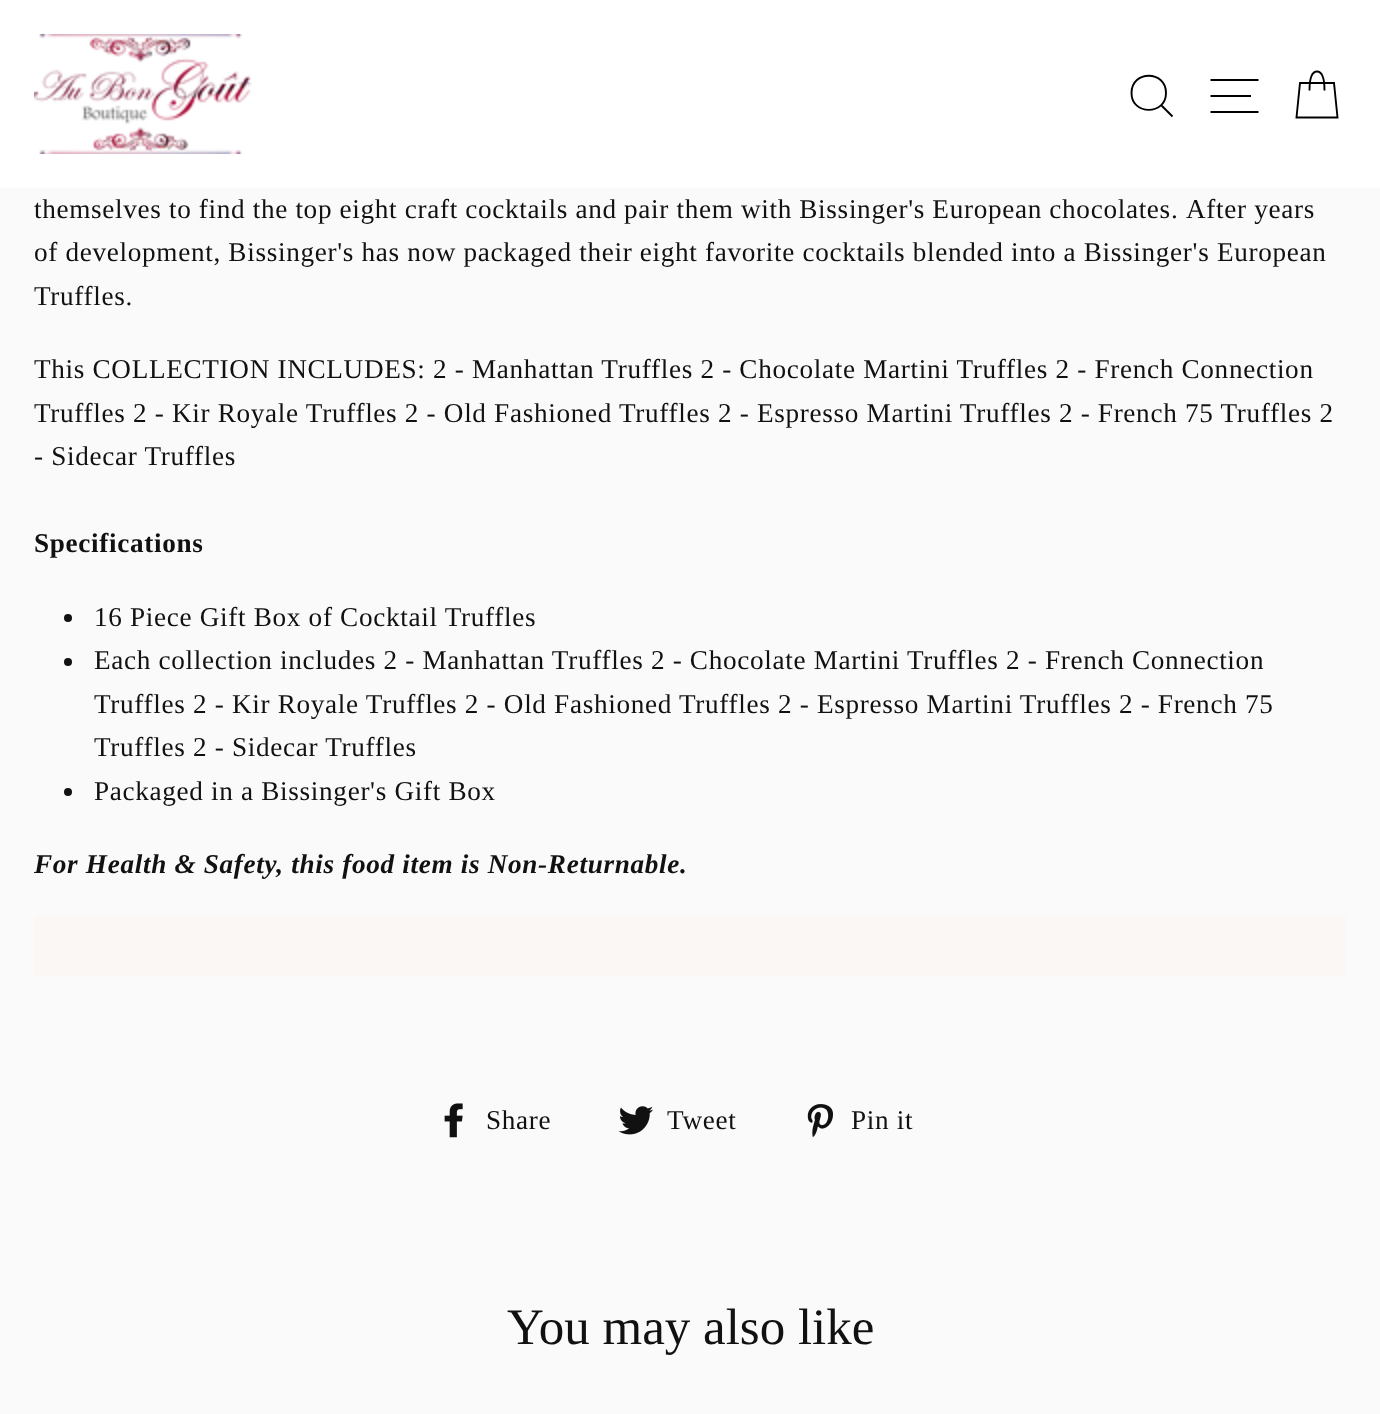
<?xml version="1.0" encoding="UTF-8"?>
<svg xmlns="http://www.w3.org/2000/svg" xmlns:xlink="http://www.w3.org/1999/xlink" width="1380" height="1414">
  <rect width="100%" height="100%" fill="#fafafa" />
  <rect width="1380" height="188" fill="#ffffff" />
  <image x="34" y="34" width="218" height="120" xlink:href="image1.png" />
  <path d="M 1166 93 c 0 22.5 -34.5 22.5 -34.5 0 c 0 -23 34.5 -23 34.5 0 z m 6.5 23.5 l -11 -11" fill="none" stroke="#000000" stroke-width="1.9" />
  <path d="M 1210.5 80 h 48 m -48 16 h 40.5 m -40.5 16 h 48" fill="none" stroke="#000000" stroke-width="1.9" />
  <path d="M 1309.5 90.5 c 0 -15 3.5 -19 7.5 -19 c 4 0 7.5 4 7.5 19 m -24.5 -7.5 h 34 l 3.5 34.5 h -41 z" fill="none" stroke="#000000" stroke-width="1.9" />
  <circle cx="68" cy="618" r="4" fill="#111111" />
  <circle cx="68" cy="662" r="4" fill="#111111" />
  <circle cx="68" cy="792" r="4" fill="#111111" />
  <rect x="34" y="916" width="1312" height="60" fill="#faf7f5" />
  <image x="444" y="1103" width="19" height="35" xlink:href="image2.png" />
  <image x="618" y="1106" width="35" height="29" xlink:href="image3.png" />
  <image x="807" y="1104" width="26" height="34" xlink:href="image4.png" />
  <text x="34" y="218" word-spacing="-0.1" style="font-family: Liberation Serif; font-size: 27.2px; letter-spacing: 0.68px; fill: #111111">themselves to find the top eight craft cocktails and pair them with Bissinger's European chocolates.</text>
  <text x="1186" y="218" style="font-family: Liberation Serif; font-size: 27.2px; letter-spacing: 0.68px; fill: #111111">After years</text>
  <text x="34" y="261" style="font-family: Liberation Serif; font-size: 27.2px; letter-spacing: 0.68px; fill: #111111">of development, Bissinger's has now packaged their eight favorite cocktails blended into a Bissinger's European</text>
  <text x="34" y="305" style="font-family: Liberation Serif; font-size: 27.2px; letter-spacing: 0.68px; fill: #111111">Truffles.</text>
  <text x="34" y="378" style="font-family: Liberation Serif; font-size: 27.2px; letter-spacing: 0.68px; fill: #111111">This COLLECTION INCLUDES: 2 - Manhattan Truffles 2 - Chocolate Martini Truffles 2 - French Connection</text>
  <text x="34" y="422" style="font-family: Liberation Serif; font-size: 27.2px; letter-spacing: 0.68px; fill: #111111">Truffles 2 - Kir Royale Truffles 2 - Old Fashioned Truffles 2 - Espresso Martini Truffles 2 - French 75 Truffles 2</text>
  <text x="34" y="465" style="font-family: Liberation Serif; font-size: 27.2px; letter-spacing: 0.68px; fill: #111111">- Sidecar Truffles</text>
  <text x="34" y="552" style="font-family: Liberation Serif; font-size: 27.2px; font-weight: bold; letter-spacing: 0.68px; fill: #111111">Specifications</text>
  <text x="94" y="626" style="font-family: Liberation Serif; font-size: 27.2px; letter-spacing: 0.68px; fill: #111111">16 Piece Gift Box of Cocktail Truffles</text>
  <text x="94" y="669" style="font-family: Liberation Serif; font-size: 27.2px; letter-spacing: 0.68px; fill: #111111">Each collection includes 2 - Manhattan Truffles 2 - Chocolate Martini Truffles 2 - French Connection</text>
  <text x="94" y="713" style="font-family: Liberation Serif; font-size: 27.2px; letter-spacing: 0.68px; fill: #111111">Truffles 2 - Kir Royale Truffles 2 - Old Fashioned Truffles 2 - Espresso Martini Truffles 2 - French 75</text>
  <text x="94" y="756" style="font-family: Liberation Serif; font-size: 27.2px; letter-spacing: 0.68px; fill: #111111">Truffles 2 - Sidecar Truffles</text>
  <text x="94" y="800" style="font-family: Liberation Serif; font-size: 27.2px; letter-spacing: 0.68px; fill: #111111">Packaged in a Bissinger's Gift Box</text>
  <text x="34" y="873" style="font-family: Liberation Serif; font-size: 27.2px; font-weight: bold; font-style: italic; letter-spacing: 0.68px; fill: #111111">For Health &amp; Safety, this food item is Non-Returnable.</text>
  <text x="486" y="1129" style="font-family: Liberation Serif; font-size: 27.2px; letter-spacing: 0.68px; fill: #111111">Share</text>
  <text x="667" y="1129" style="font-family: Liberation Serif; font-size: 27.2px; letter-spacing: 0.68px; fill: #111111">Tweet</text>
  <text x="851" y="1129" style="font-family: Liberation Serif; font-size: 27.2px; letter-spacing: 0.68px; fill: #111111">Pin it</text>
  <text x="507" y="1344" style="font-family: Liberation Serif; font-size: 51px; fill: #111111">You may also like</text>
</svg>
